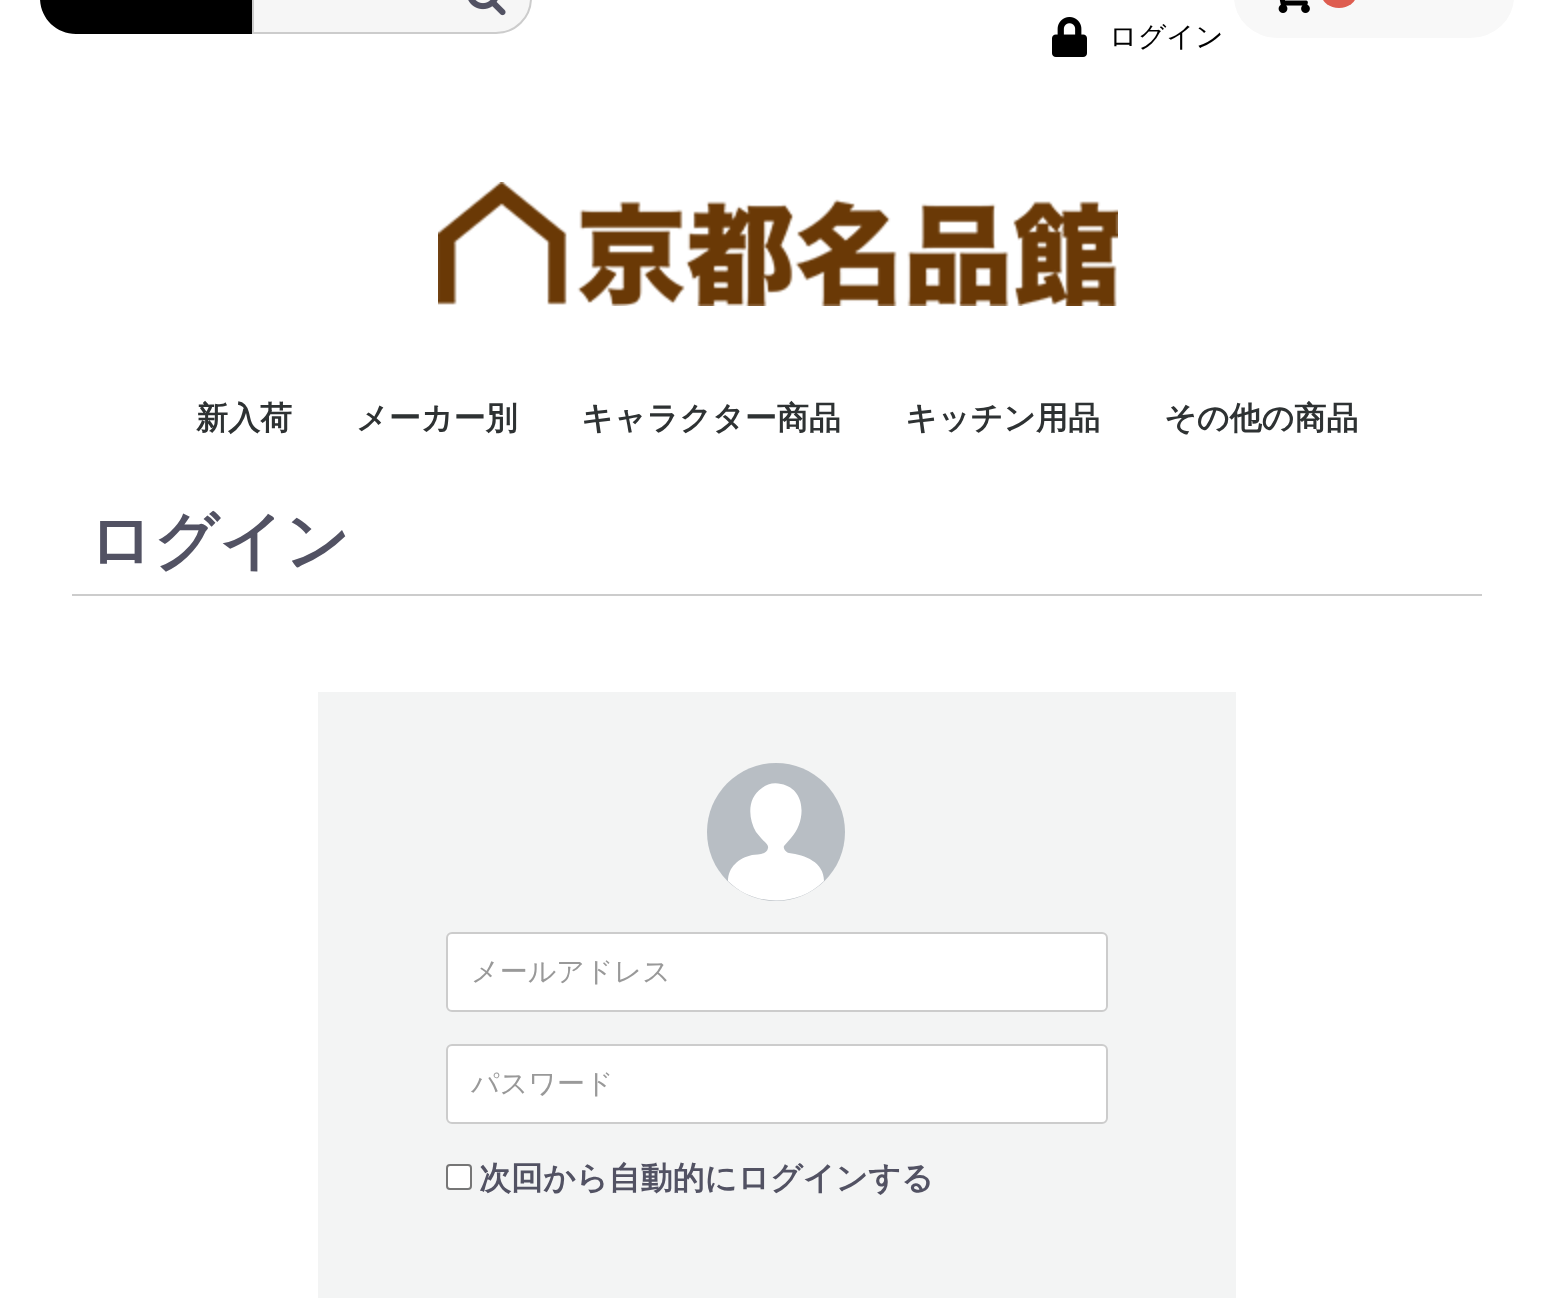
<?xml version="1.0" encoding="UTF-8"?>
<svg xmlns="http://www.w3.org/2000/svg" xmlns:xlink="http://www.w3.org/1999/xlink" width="1553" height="1298">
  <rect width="100%" height="100%" fill="#ffffff" />
  <path d="M 76 -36 h 176 v 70 h -176 c -20 0 -36 -16 -36 -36 v 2 c 0 -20 16 -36 36 -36 z" fill="#000000" />
  <path d="M 253 -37 h 243 c 19.5 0 35 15.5 35 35 c 0 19.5 -15.5 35 -35 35 h -243 z" fill="#f6f6f6" stroke="#cccccc" stroke-width="2" />
  <image x="468" y="0" width="38" height="16" xlink:href="image1.png" />
  <image x="1052" y="17" width="35" height="40" xlink:href="image2.png" />
  <rect x="1234" y="-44" width="280" height="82" rx="44" fill="#f8f8f8" />
  <image x="1278" y="0" width="32" height="13" xlink:href="image3.png" />
  <rect x="1322" y="-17" width="34" height="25" rx="17" fill="#de5d50" />
  <image x="438" y="182" width="680" height="124" xlink:href="image4.png" />
  <rect x="72" y="594" width="1410" height="2" fill="#cccccc" />
  <rect x="318" y="692" width="918" height="606" fill="#f3f4f4" />
  <circle cx="776" cy="832" r="69" fill="#b8bec4" />
  <path d="M 789 853 c -3 -1 -6 -4 -5 -7 l 7 -8 c 15 -16 16 -49 -10 -54 c -7 -2 -14 0 -19 4 c -15 10 -14 30 -6 44 l 5 6 c 2 3 8 6 7 10 c -1 7 -11 6 -16 7 c -13 3 -24 12 -24 26 c 26 26 70 26 96 0 c 0 -19 -19 -26 -35 -28 z" fill="#ffffff" fill-rule="evenodd" />
  <rect x="447" y="933" width="660" height="78" rx="5" fill="#ffffff" stroke="#cccccc" stroke-width="2" />
  <rect x="447" y="1045" width="660" height="78" rx="5" fill="#ffffff" stroke="#cccccc" stroke-width="2" />
  <rect x="447" y="1165" width="24" height="24" rx="3" fill="#ffffff" stroke="#767676" stroke-width="2" />
  <text x="1109" y="46" style="font-family: WenQuanYi Zen Hei; font-size: 28px; font-weight: 500; fill: #000000">ログイン</text>
  <text x="196" y="429" style="font-family: WenQuanYi Zen Hei; font-size: 32px; font-weight: bold; fill: #2e3233">新入荷</text>
  <text x="356" y="429" style="font-family: WenQuanYi Zen Hei; font-size: 32px; font-weight: bold; fill: #2e3233">メーカー別</text>
  <text x="581" y="429" style="font-family: WenQuanYi Zen Hei; font-size: 32px; font-weight: bold; fill: #2e3233">キャラクター商品</text>
  <text x="905" y="429" style="font-family: WenQuanYi Zen Hei; font-size: 32px; font-weight: bold; fill: #2e3233">キッチン用品</text>
  <text x="1164" y="429" style="font-family: WenQuanYi Zen Hei; font-size: 32px; font-weight: bold; fill: #2e3233">その他の商品</text>
  <text x="88" y="563" style="font-family: WenQuanYi Zen Hei; font-size: 64px; font-weight: bold; fill: #525263">ログイン</text>
  <text x="471" y="981" style="font-family: WenQuanYi Zen Hei; font-size: 28px; font-weight: 500; fill: #999999">メールアドレス</text>
  <text x="471" y="1093" style="font-family: WenQuanYi Zen Hei; font-size: 28px; font-weight: 500; fill: #999999">パスワード</text>
  <text x="479" y="1189" style="font-family: WenQuanYi Zen Hei; font-size: 32px; font-weight: bold; fill: #525263">次回から自動的にログインする</text>
</svg>
